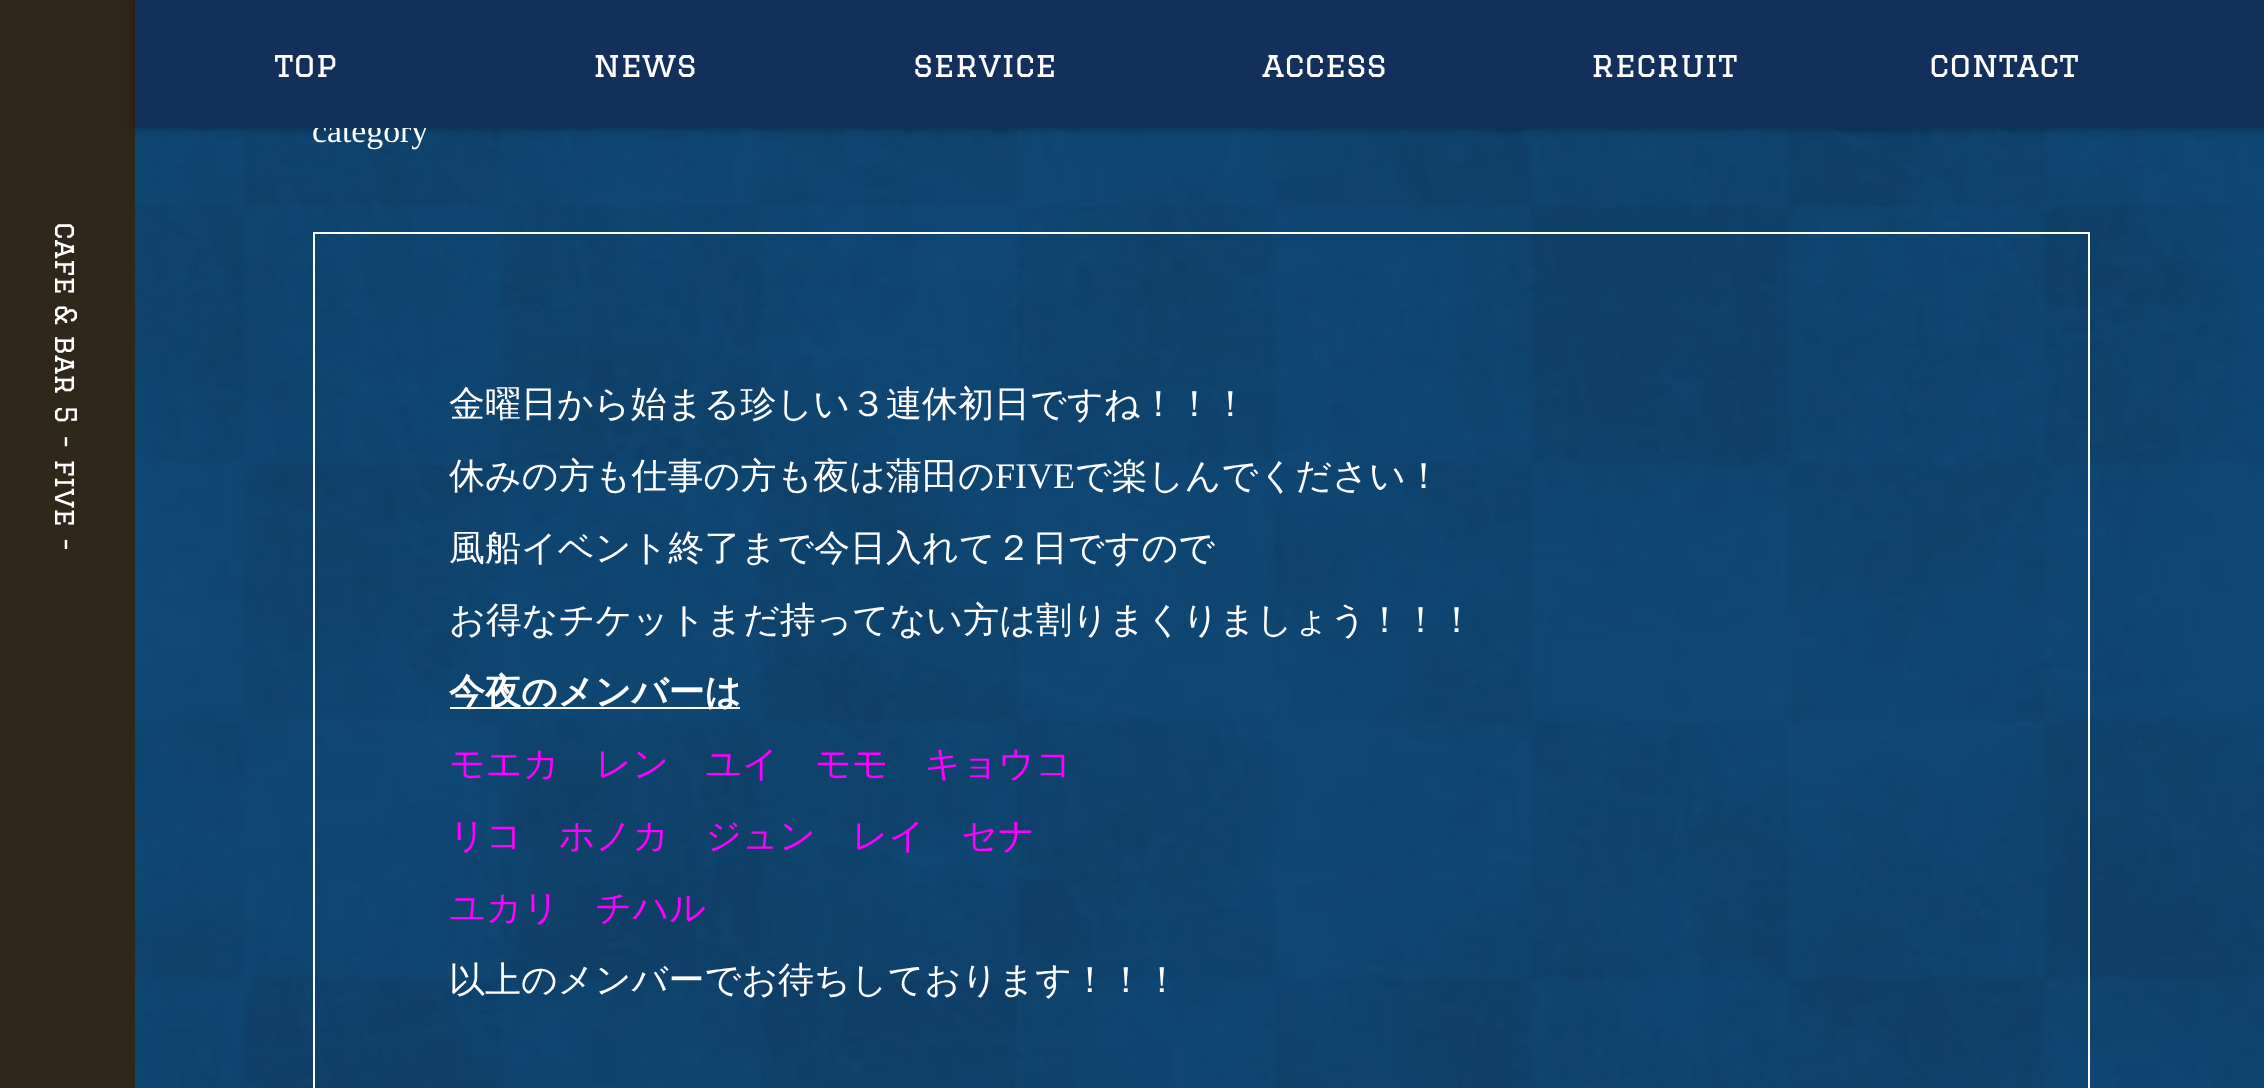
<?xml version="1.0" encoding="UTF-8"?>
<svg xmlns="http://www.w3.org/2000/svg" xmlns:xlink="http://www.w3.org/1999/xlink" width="2264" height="1088">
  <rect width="100%" height="100%" fill="#ffffff" />
  <image x="135" y="128" width="2129" height="960" xlink:href="image1.png" />
  <rect width="135" height="1088" fill="#30271b" />
  <rect x="135" width="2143" height="128" fill="#000000" fill-opacity="0.4" filter="blur(4.5px)" />
  <rect x="314" y="233" width="1775" height="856" fill="none" stroke="#ffffff" stroke-width="2" />
  <rect x="450" y="707" width="290" height="2" fill="#ffffff" />
  <text x="55" y="222" transform="rotate(90 55 222)" style="font-family: Graduate; font-size: 29.25px; fill: #ffffff">cafe &amp; bar 5 - five -</text>
  <text x="312" y="142" style="font-family: Liberation Serif; font-size: 33.75px; fill: #ffffff">category</text>
  <rect x="135" width="2129" height="128" fill="#12305b" />
  <text x="1929" y="77" style="font-family: Graduate; font-size: 33.75px; fill: #ffffff">contact</text>
  <text x="1591" y="77" style="font-family: Graduate; font-size: 33.75px; fill: #ffffff">recruit</text>
  <text x="1262" y="77" style="font-family: Graduate; font-size: 33.75px; fill: #ffffff">access</text>
  <text x="913" y="77" style="font-family: Graduate; font-size: 33.75px; fill: #ffffff">service</text>
  <text x="593" y="77" style="font-family: Graduate; font-size: 33.75px; fill: #ffffff">news</text>
  <text x="274" y="77" style="font-family: Graduate; font-size: 33.75px; fill: #ffffff">top</text>
  <text x="449" y="416" style="font-family: WenQuanYi Zen Hei; font-size: 36px; font-weight: 500; fill: #ffffff">金曜日から始まる珍しい３連休初日ですね！！！</text>
  <text x="449" y="488" style="font-family: WenQuanYi Zen Hei; font-size: 36px; font-weight: 500; fill: #ffffff">休みの方も仕事の方も夜は蒲田の</text>
  <text x="995" y="488" style="font-family: Liberation Serif; font-size: 36px; fill: #ffffff">FIVE</text>
  <text x="1075" y="488" style="font-family: WenQuanYi Zen Hei; font-size: 36px; font-weight: 500; fill: #ffffff">で楽しんでください！</text>
  <text x="449" y="560" style="font-family: WenQuanYi Zen Hei; font-size: 36px; font-weight: 500; fill: #ffffff">風船イベント終了まで今日入れて２日ですので</text>
  <text x="449" y="632" style="font-family: WenQuanYi Zen Hei; font-size: 36px; font-weight: 500; fill: #ffffff">お得なチケットまだ持ってない方は割りまくりましょう！！！</text>
  <text x="449" y="704" style="font-family: WenQuanYi Zen Hei; font-size: 36px; font-weight: bold; fill: #ffffff">今夜のメンバーは</text>
  <text x="449" y="776" style="font-family: WenQuanYi Zen Hei; font-size: 36px; font-weight: 500; fill: #ff00ff">モエカ　レン　ユイ　モモ　キョウコ</text>
  <text x="449" y="848" style="font-family: WenQuanYi Zen Hei; font-size: 36px; font-weight: 500; fill: #ff00ff">リコ　ホノカ　ジュン　レイ　セナ</text>
  <text x="449" y="920" style="font-family: WenQuanYi Zen Hei; font-size: 36px; font-weight: 500; fill: #ff00ff">ユカリ　チハル</text>
  <text x="449" y="992" style="font-family: WenQuanYi Zen Hei; font-size: 36px; font-weight: 500; fill: #ffffff">以上のメンバーでお待ちしております！！！</text>
</svg>
